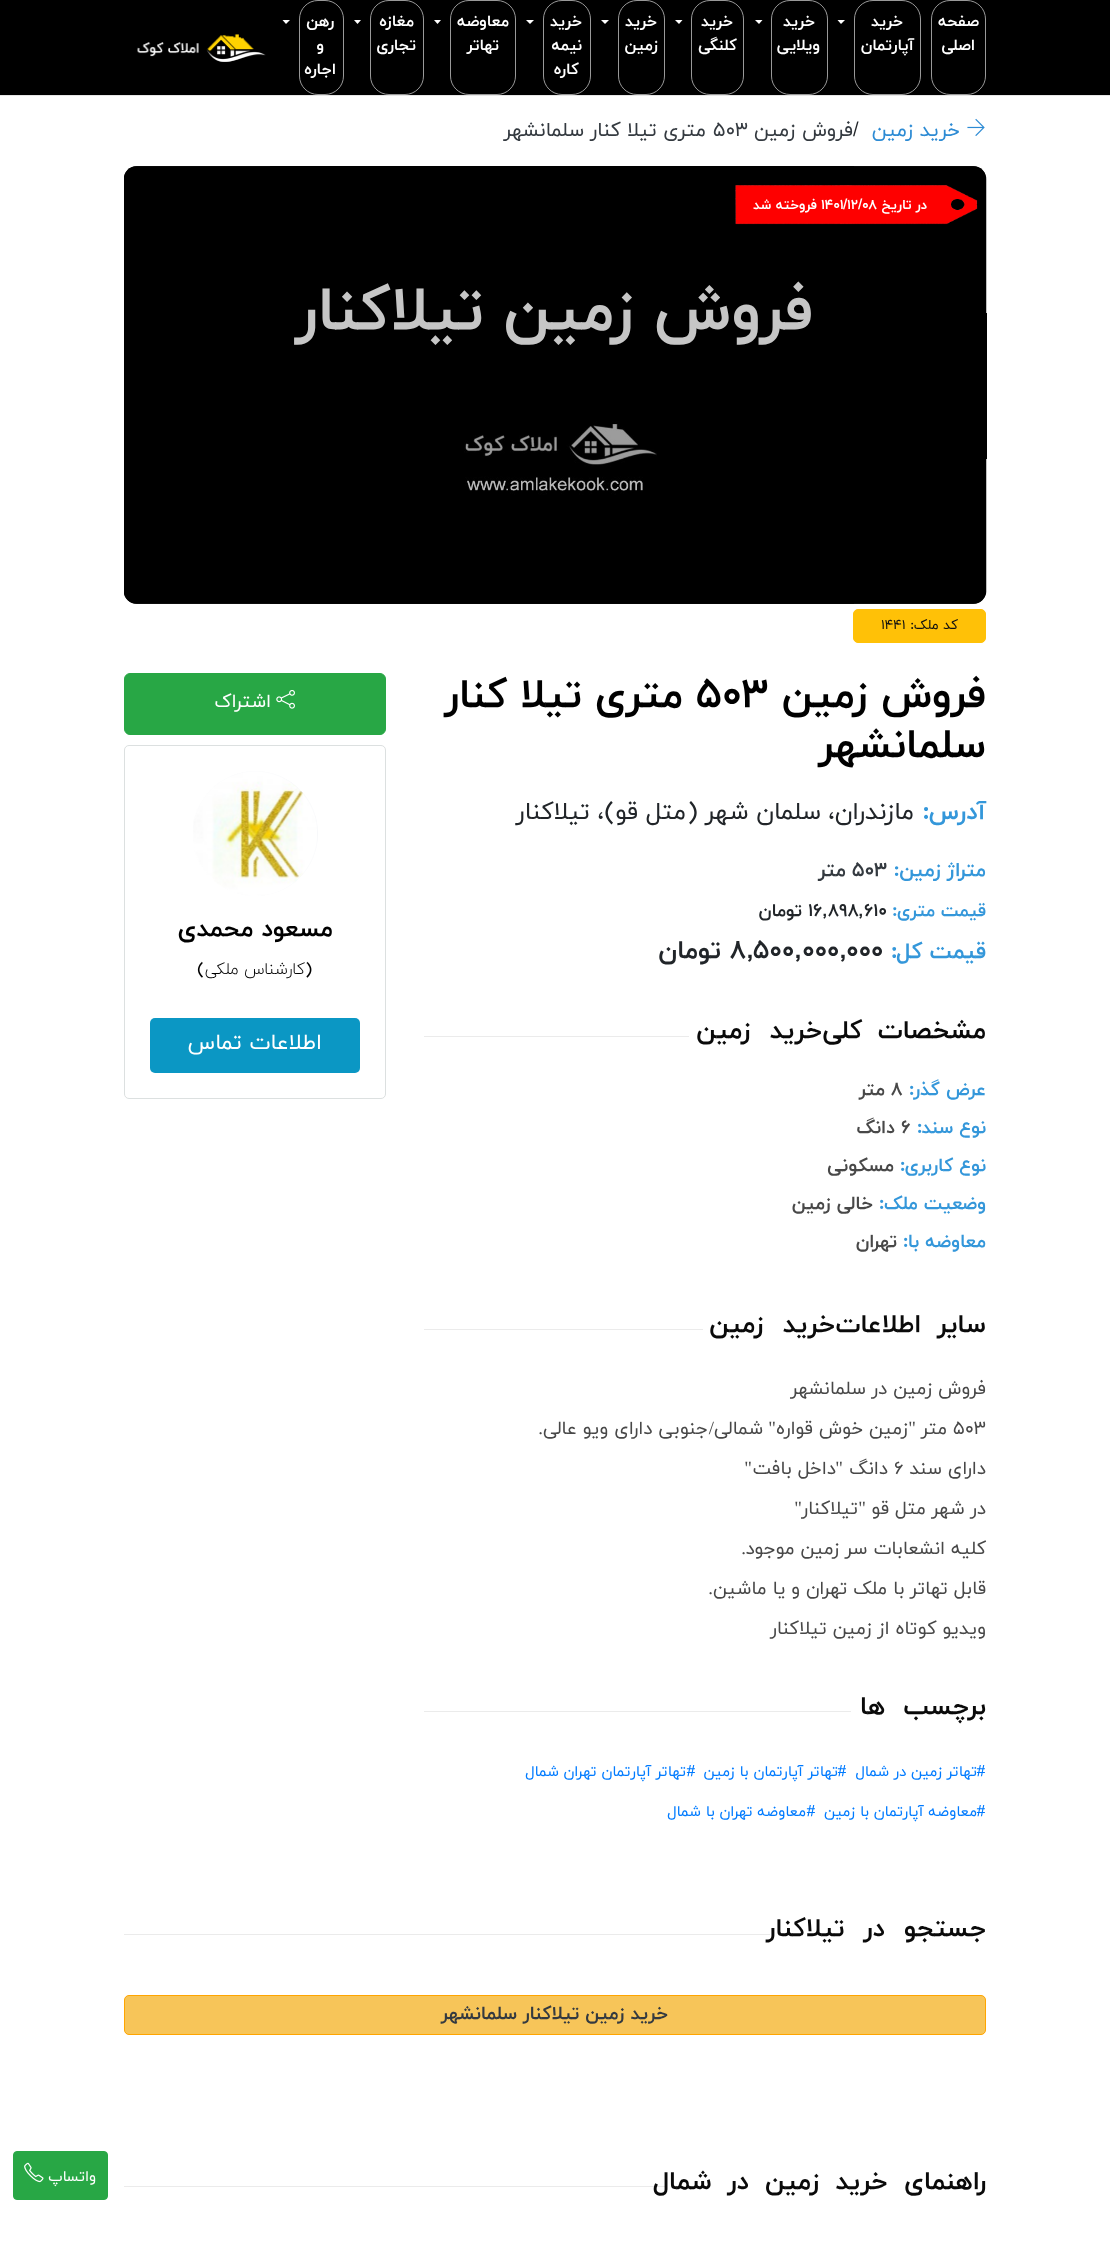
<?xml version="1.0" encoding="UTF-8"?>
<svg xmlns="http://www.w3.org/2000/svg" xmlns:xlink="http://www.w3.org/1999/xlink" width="1110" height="2262">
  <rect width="100%" height="100%" fill="#ffffff" />
  <rect width="1110" height="95" fill="#000000" />
  <rect x="931.5" y="0.5" width="54" height="94" rx="18.5" fill="none" stroke="#999999" />
  <rect x="854.5" y="0.5" width="66" height="94" rx="18.5" fill="none" stroke="#999999" />
  <path d="M 837.5 20 h 7.5 l -4 4 z" fill="#ffffff" />
  <rect x="771.5" y="0.5" width="56" height="94" rx="18.5" fill="none" stroke="#999999" />
  <path d="M 755 20 h 7.5 l -3.5 4 z" fill="#ffffff" />
  <rect x="691.5" y="0.5" width="52" height="94" rx="18.5" fill="none" stroke="#999999" />
  <path d="M 675 20 h 7.5 l -3.5 4 z" fill="#ffffff" />
  <rect x="618.5" y="0.5" width="46" height="94" rx="18.5" fill="none" stroke="#999999" />
  <path d="M 601 20 h 8 l -4 4 z" fill="#ffffff" />
  <rect x="543.5" y="0.5" width="47" height="94" rx="18.5" fill="none" stroke="#999999" />
  <path d="M 526 20 h 8 l -4 4 z" fill="#ffffff" />
  <rect x="450.5" y="0.5" width="65" height="94" rx="18.5" fill="none" stroke="#999999" />
  <path d="M 434 20 h 7 l -3.5 4 z" fill="#ffffff" />
  <rect x="370.5" y="0.5" width="53" height="94" rx="18.5" fill="none" stroke="#999999" />
  <path d="M 354 20 h 7 l -3.5 4 z" fill="#ffffff" />
  <rect x="299.5" y="0.5" width="44" height="94" rx="18.5" fill="none" stroke="#999999" />
  <path d="M 282.5 20 h 7.5 l -4 4 z" fill="#ffffff" />
  <image x="137" y="34" width="129" height="28" xlink:href="image1.png" />
  <rect y="95" width="1110" height="1" fill="#e6e6e6" />
  <image x="967" y="118" width="18" height="18" xlink:href="image2.png" />
  <rect x="124" y="166" width="862" height="438" rx="13" fill="#262626" />
  <image x="124" y="166" width="862" height="438" xlink:href="image5.png" />
  <image x="735" y="185" width="243" height="40" xlink:href="image3.png" />
  <image x="986" y="176" width="1" height="418" xlink:href="image4.png" />
  <rect x="853.5" y="609.5" width="132" height="33" rx="4.5" fill="#ffc107" stroke="#ffc107" />
  <rect x="424" y="1036" width="265" height="1" fill="#ebebeb" />
  <rect x="424" y="1329" width="279" height="1" fill="#ebebeb" />
  <rect x="424" y="1711" width="427" height="1" fill="#ebebeb" />
  <rect x="124.5" y="673.5" width="261" height="61" rx="5.5" fill="#28a745" stroke="#28a745" />
  <image x="276" y="690" width="19" height="19" xlink:href="image6.png" />
  <rect x="124.5" y="745.5" width="261" height="353" rx="4.5" fill="none" stroke="#dce0e0" />
  <circle cx="255.5" cy="833.5" r="62.5" fill="#f7f8fa" />
  <image x="193" y="771" width="124" height="125" xlink:href="image7.png" />
  <rect x="150" y="1018" width="210" height="55" rx="5" fill="#0b97c4" />
  <rect x="124" y="1934" width="646" height="1" fill="#ebebeb" />
  <rect x="124.5" y="1995.5" width="861" height="39" rx="4.5" fill="#f7c559" stroke="#ffa500" />
  <rect x="124" y="2186" width="542" height="1" fill="#ebebeb" />
  <rect x="13.5" y="2151.5" width="94" height="48" rx="3.5" fill="#28a745" stroke="#28a745" />
  <image x="24" y="2162" width="20" height="21" xlink:href="image8.png" />
  <text x="979" y="26" style="font-family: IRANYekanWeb; font-size: 16px; font-weight: bold; direction: rtl; fill: #ffffff">صفحه</text>
  <text x="975" y="50" style="font-family: IRANYekanWeb; font-size: 16px; font-weight: bold; direction: rtl; fill: #ffffff">اصلی</text>
  <text x="903" y="26" style="font-family: IRANYekanWeb; font-size: 16px; font-weight: bold; direction: rtl; fill: #ffffff">خرید</text>
  <text x="914" y="50" style="font-family: IRANYekanWeb; font-size: 16px; font-weight: bold; direction: rtl; fill: #ffffff">آپارتمان</text>
  <text x="815" y="26" style="font-family: IRANYekanWeb; font-size: 16px; font-weight: bold; direction: rtl; fill: #ffffff">خرید</text>
  <text x="820" y="50" style="font-family: IRANYekanWeb; font-size: 16px; font-weight: bold; direction: rtl; fill: #ffffff">ویلایی</text>
  <text x="733" y="26" style="font-family: IRANYekanWeb; font-size: 16px; font-weight: bold; direction: rtl; fill: #ffffff">خرید</text>
  <text x="737" y="50" style="font-family: IRANYekanWeb; font-size: 16px; font-weight: bold; direction: rtl; fill: #ffffff">کلنگی</text>
  <text x="657" y="26" style="font-family: IRANYekanWeb; font-size: 16px; font-weight: bold; direction: rtl; fill: #ffffff">خرید</text>
  <text x="658" y="50" style="font-family: IRANYekanWeb; font-size: 16px; font-weight: bold; direction: rtl; fill: #ffffff">زمین</text>
  <text x="582" y="26" style="font-family: IRANYekanWeb; font-size: 16px; font-weight: bold; direction: rtl; fill: #ffffff">خرید</text>
  <text x="582" y="50" style="font-family: IRANYekanWeb; font-size: 16px; font-weight: bold; direction: rtl; fill: #ffffff">نیمه</text>
  <text x="579" y="74" style="font-family: IRANYekanWeb; font-size: 16px; font-weight: bold; direction: rtl; fill: #ffffff">کاره</text>
  <text x="509" y="26" style="font-family: IRANYekanWeb; font-size: 16px; font-weight: bold; direction: rtl; fill: #ffffff">معاوضه</text>
  <text x="499" y="50" style="font-family: IRANYekanWeb; font-size: 16px; font-weight: bold; direction: rtl; fill: #ffffff">تهاتر</text>
  <text x="414" y="26" style="font-family: IRANYekanWeb; font-size: 16px; font-weight: bold; direction: rtl; fill: #ffffff">مغازه</text>
  <text x="416" y="50" style="font-family: IRANYekanWeb; font-size: 16px; font-weight: bold; direction: rtl; fill: #ffffff">تجاری</text>
  <text x="334" y="26" style="font-family: IRANYekanWeb; font-size: 16px; font-weight: bold; direction: rtl; fill: #ffffff">رهن</text>
  <text x="324" y="50" style="font-family: IRANYekanWeb; font-size: 16px; font-weight: bold; direction: rtl; fill: #ffffff">و</text>
  <text x="336" y="74" style="font-family: IRANYekanWeb; font-size: 16px; font-weight: bold; direction: rtl; fill: #ffffff">اجاره</text>
  <text x="960" y="136" style="font-family: IRANYekanWeb; font-size: 20px; direction: rtl; fill: #2d8bd4">خرید زمین</text>
  <text x="853" y="136" style="font-family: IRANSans; font-size: 20px; fill: #212529">/</text>
  <text x="853" y="136" style="font-family: IRANYekanWeb; font-size: 20px; direction: rtl; fill: #343a40">فروش زمین</text>
  <text x="713" y="136" style="font-family: IRANYekanWeb; font-size: 20px; fill: #343a40">۵۰۳</text>
  <text x="706" y="136" style="font-family: IRANYekanWeb; font-size: 20px; direction: rtl; fill: #343a40">متری تیلا کنار سلمانشهر</text>
  <text x="927" y="209" style="font-family: IRANYekanWeb; font-size: 13.75px; font-weight: bold; direction: rtl; fill: #ffffff">در تاریخ</text>
  <text x="862" y="209" style="font-family: IRANYekanWeb; font-size: 13.75px; font-weight: bold; fill: #ffffff">۰۸</text>
  <text x="858" y="209" style="font-family: IRANSans; font-size: 13.75px; font-weight: bold; fill: #ffffff">/</text>
  <text x="847" y="209" style="font-family: IRANYekanWeb; font-size: 13.75px; font-weight: bold; fill: #ffffff">۱۲</text>
  <text x="843" y="209" style="font-family: IRANSans; font-size: 13.75px; font-weight: bold; fill: #ffffff">/</text>
  <text x="821" y="209" style="font-family: IRANYekanWeb; font-size: 13.75px; font-weight: bold; fill: #ffffff">۱۴۰۱</text>
  <text x="817" y="209" style="font-family: IRANYekanWeb; font-size: 13.75px; font-weight: bold; direction: rtl; fill: #ffffff">فروخته شد</text>
  <text x="813" y="329" style="font-family: IRANYekanWeb; font-size: 62.5px; font-weight: bold; direction: rtl; fill: #c6c6c6">فروش زمین تیلاکنار</text>
  <text x="958" y="629" style="font-family: IRANYekanWeb; font-size: 13.75px; direction: rtl; fill: #111111">کد ملک</text>
  <text x="914" y="629" style="font-family: IRANSans; font-size: 13.75px; direction: rtl; fill: #111111">:</text>
  <text x="881" y="629" style="font-family: IRANYekanWeb; font-size: 13.75px; fill: #111111">۱۴۴۱</text>
  <text x="986" y="707" style="font-family: IRANYekanWeb; font-size: 41.25px; font-weight: bold; direction: rtl; fill: #000000">فروش زمین</text>
  <text x="696" y="707" style="font-family: IRANYekanWeb; font-size: 41.25px; font-weight: bold; fill: #000000">۵۰۳</text>
  <text x="683" y="707" style="font-family: IRANYekanWeb; font-size: 41.25px; font-weight: bold; direction: rtl; fill: #000000">متری تیلا کنار</text>
  <text x="986" y="757" style="font-family: IRANYekanWeb; font-size: 41.25px; font-weight: bold; direction: rtl; fill: #000000">سلمانشهر</text>
  <text x="986" y="819" style="font-family: IRANYekanWeb; font-size: 24.5px; font-weight: bold; direction: rtl; fill: #3497da">آدرس</text>
  <text x="929" y="819" style="font-family: IRANSans; font-size: 24.5px; font-weight: bold; direction: rtl; fill: #3497da">:</text>
  <text x="914" y="819" style="font-family: IRANYekanWeb; font-size: 24.5px; direction: rtl; fill: #212529">مازندران،</text>
  <text x="821" y="819" style="font-family: IRANYekanWeb; font-size: 24.5px; direction: rtl; fill: #212529">سلمان شهر</text>
  <text x="699" y="819" style="font-family: IRANSans; font-size: 24.5px; direction: rtl; fill: #212529">(</text>
  <text x="686" y="819" style="font-family: IRANYekanWeb; font-size: 24.5px; direction: rtl; fill: #212529">متل قو</text>
  <text x="616" y="819" style="font-family: IRANSans; font-size: 24.5px; direction: rtl; fill: #212529">)</text>
  <text x="604" y="819" style="font-family: IRANYekanWeb; font-size: 24.5px; direction: rtl; fill: #212529">،</text>
  <text x="590" y="819" style="font-family: IRANYekanWeb; font-size: 24.5px; direction: rtl; fill: #212529">تیلاکنار</text>
  <text x="986" y="876" style="font-family: IRANYekanWeb; font-size: 20px; font-weight: bold; direction: rtl; fill: #3497da">متراژ زمین</text>
  <text x="899" y="876" style="font-family: IRANSans; font-size: 20px; font-weight: bold; direction: rtl; fill: #3497da">:</text>
  <text x="852" y="876" style="font-family: IRANYekanWeb; font-size: 20px; font-weight: bold; fill: #343a40">۵۰۳</text>
  <text x="846" y="876" style="font-family: IRANYekanWeb; font-size: 20px; font-weight: bold; direction: rtl; fill: #343a40">متر</text>
  <text x="986" y="916" style="font-family: IRANYekanWeb; font-size: 18px; font-weight: bold; direction: rtl; fill: #3497da">قیمت متری</text>
  <text x="897" y="916" style="font-family: IRANSans; font-size: 18px; font-weight: bold; direction: rtl; fill: #3497da">:</text>
  <text x="864" y="916" style="font-family: IRANYekanWeb; font-size: 18px; font-weight: bold; fill: #212529">۶۱۰</text>
  <text x="828" y="916" style="font-family: IRANYekanWeb; font-size: 18px; font-weight: bold; fill: #212529">۸۹۸</text>
  <text x="808" y="916" style="font-family: IRANYekanWeb; font-size: 18px; font-weight: bold; fill: #212529">۱۶</text>
  <text x="802" y="916" style="font-family: IRANYekanWeb; font-size: 18px; font-weight: bold; direction: rtl; fill: #212529">تومان</text>
  <text x="858" y="916" style="font-family: IRANSans; font-size: 18px; font-weight: bold; fill: #212529">,</text>
  <text x="822" y="916" style="font-family: IRANSans; font-size: 18px; font-weight: bold; fill: #212529">,</text>
  <text x="986" y="958" style="font-family: IRANYekanWeb; font-size: 22.5px; font-weight: bold; direction: rtl; fill: #3497da">قیمت کل</text>
  <text x="897" y="958" style="font-family: IRANSans; font-size: 22.5px; font-weight: bold; direction: rtl; fill: #3497da">:</text>
  <text x="846" y="958" style="font-family: IRANYekanWeb; font-size: 26px; font-weight: bold; fill: #212529">۰۰۰</text>
  <text x="839" y="958" style="font-family: IRANSans; font-size: 26px; font-weight: bold; fill: #212529">,</text>
  <text x="802" y="958" style="font-family: IRANYekanWeb; font-size: 26px; font-weight: bold; fill: #212529">۰۰۰</text>
  <text x="794" y="958" style="font-family: IRANSans; font-size: 26px; font-weight: bold; fill: #212529">,</text>
  <text x="753" y="958" style="font-family: IRANYekanWeb; font-size: 26px; font-weight: bold; fill: #212529">۵۰۰</text>
  <text x="746" y="958" style="font-family: IRANSans; font-size: 26px; font-weight: bold; fill: #212529">,</text>
  <text x="730" y="958" style="font-family: IRANYekanWeb; font-size: 26px; font-weight: bold; fill: #212529">۸</text>
  <text x="721" y="958" style="font-family: IRANYekanWeb; font-size: 26px; font-weight: bold; direction: rtl; fill: #212529">تومان</text>
  <text x="986" y="1038" word-spacing="7" style="font-family: IRANYekanWeb; font-size: 26px; font-weight: bold; letter-spacing: -1.25px; direction: rtl; fill: #0a0a0a">مشخصات کلی</text>
  <text x="822" y="1038" word-spacing="11" style="font-family: IRANYekanWeb; font-size: 26px; font-weight: bold; letter-spacing: -1.25px; direction: rtl; fill: #0a0a0a">خرید زمین</text>
  <text x="986" y="1095" style="font-family: IRANYekanWeb; font-size: 18.75px; font-weight: bold; direction: rtl; fill: #3497da">عرض گذر</text>
  <text x="914" y="1095" style="font-family: IRANSans; font-size: 18.75px; font-weight: bold; direction: rtl; fill: #3497da">:</text>
  <text x="891" y="1095" style="font-family: IRANYekanWeb; font-size: 18.75px; font-weight: bold; fill: #484848">۸</text>
  <text x="885" y="1095" style="font-family: IRANYekanWeb; font-size: 18.75px; font-weight: bold; direction: rtl; fill: #484848">متر</text>
  <text x="986" y="1133" style="font-family: IRANYekanWeb; font-size: 18.75px; font-weight: bold; direction: rtl; fill: #3497da">نوع سند</text>
  <text x="922" y="1133" style="font-family: IRANSans; font-size: 18.75px; font-weight: bold; direction: rtl; fill: #3497da">:</text>
  <text x="901" y="1133" style="font-family: IRANYekanWeb; font-size: 18.75px; font-weight: bold; fill: #484848">۶</text>
  <text x="895" y="1133" style="font-family: IRANYekanWeb; font-size: 18.75px; font-weight: bold; direction: rtl; fill: #484848">دانگ</text>
  <text x="986" y="1171" style="font-family: IRANYekanWeb; font-size: 18.75px; font-weight: bold; direction: rtl; fill: #3497da">نوع کاربری</text>
  <text x="905" y="1171" style="font-family: IRANSans; font-size: 18.75px; font-weight: bold; direction: rtl; fill: #3497da">:</text>
  <text x="894" y="1171" style="font-family: IRANYekanWeb; font-size: 18.75px; font-weight: bold; direction: rtl; fill: #484848">مسکونی</text>
  <text x="986" y="1209" style="font-family: IRANYekanWeb; font-size: 18.75px; font-weight: bold; direction: rtl; fill: #3497da">وضعیت ملک</text>
  <text x="884" y="1209" style="font-family: IRANSans; font-size: 18.75px; font-weight: bold; direction: rtl; fill: #3497da">:</text>
  <text x="873" y="1209" style="font-family: IRANYekanWeb; font-size: 18.75px; font-weight: bold; direction: rtl; fill: #484848">خالی زمین</text>
  <text x="986" y="1247" style="font-family: IRANYekanWeb; font-size: 18.75px; font-weight: bold; direction: rtl; fill: #3497da">معاوضه با</text>
  <text x="908" y="1247" style="font-family: IRANSans; font-size: 18.75px; font-weight: bold; direction: rtl; fill: #3497da">:</text>
  <text x="897" y="1247" style="font-family: IRANYekanWeb; font-size: 18.75px; font-weight: bold; direction: rtl; fill: #484848">تهران</text>
  <text x="986" y="1332" word-spacing="8" style="font-family: IRANYekanWeb; font-size: 26px; font-weight: bold; letter-spacing: -1.25px; direction: rtl; fill: #0a0a0a">سایر اطلاعات</text>
  <text x="835" y="1332" word-spacing="11" style="font-family: IRANYekanWeb; font-size: 26px; font-weight: bold; letter-spacing: -1.25px; direction: rtl; fill: #0a0a0a">خرید زمین</text>
  <text x="986" y="1394" style="font-family: IRANYekanWeb; font-size: 18.75px; direction: rtl; fill: #484848">فروش زمین در سلمانشهر</text>
  <text x="953" y="1434" style="font-family: IRANYekanWeb; font-size: 18.75px; fill: #484848">۵۰۳</text>
  <text x="947" y="1434" style="font-family: IRANYekanWeb; font-size: 18.75px; direction: rtl; fill: #484848">متر</text>
  <text x="916" y="1434" style="font-family: Liberation Serif; font-size: 18.75px; direction: rtl; fill: #484848">"</text>
  <text x="908" y="1434" style="font-family: IRANYekanWeb; font-size: 18.75px; direction: rtl; fill: #484848">زمین خوش قواره</text>
  <text x="776" y="1434" style="font-family: Liberation Serif; font-size: 18.75px; direction: rtl; fill: #484848">"</text>
  <text x="763" y="1434" style="font-family: IRANYekanWeb; font-size: 18.75px; direction: rtl; fill: #484848">شمالی</text>
  <text x="714" y="1434" style="font-family: Liberation Serif; font-size: 18.75px; direction: rtl; fill: #484848">/</text>
  <text x="708" y="1434" style="font-family: IRANYekanWeb; font-size: 18.75px; direction: rtl; fill: #484848">جنوبی دارای ویو عالی</text>
  <text x="543" y="1434" style="font-family: Liberation Serif; font-size: 18.75px; direction: rtl; fill: #484848">.</text>
  <text x="986" y="1474" style="font-family: IRANYekanWeb; font-size: 18.75px; direction: rtl; fill: #484848">دارای سند</text>
  <text x="894" y="1474" style="font-family: IRANYekanWeb; font-size: 18.75px; fill: #484848">۶</text>
  <text x="888" y="1474" style="font-family: IRANYekanWeb; font-size: 18.75px; direction: rtl; fill: #484848">دانگ</text>
  <text x="843" y="1474" style="font-family: Liberation Serif; font-size: 18.75px; direction: rtl; fill: #484848">"</text>
  <text x="836" y="1474" style="font-family: IRANYekanWeb; font-size: 18.75px; direction: rtl; fill: #484848">داخل بافت</text>
  <text x="752" y="1474" style="font-family: Liberation Serif; font-size: 18.75px; direction: rtl; fill: #484848">"</text>
  <text x="986" y="1514" style="font-family: IRANYekanWeb; font-size: 18.75px; direction: rtl; fill: #484848">در شهر متل قو</text>
  <text x="866" y="1514" style="font-family: Liberation Serif; font-size: 18.75px; direction: rtl; fill: #484848">"</text>
  <text x="858" y="1514" style="font-family: IRANYekanWeb; font-size: 18.75px; direction: rtl; fill: #484848">تیلاکنار</text>
  <text x="802" y="1514" style="font-family: Liberation Serif; font-size: 18.75px; direction: rtl; fill: #484848">"</text>
  <text x="986" y="1554" style="font-family: IRANYekanWeb; font-size: 18.75px; direction: rtl; fill: #484848">کلیه انشعابات سر زمین موجود</text>
  <text x="746" y="1554" style="font-family: Liberation Serif; font-size: 18.75px; direction: rtl; fill: #484848">.</text>
  <text x="986" y="1594" style="font-family: IRANYekanWeb; font-size: 18.75px; direction: rtl; fill: #484848">قابل تهاتر با ملک تهران و یا ماشین</text>
  <text x="713" y="1594" style="font-family: Liberation Serif; font-size: 18.75px; direction: rtl; fill: #484848">.</text>
  <text x="986" y="1634" style="font-family: IRANYekanWeb; font-size: 18.75px; direction: rtl; fill: #484848">ویدیو کوتاه از زمین تیلاکنار</text>
  <text x="986" y="1714" word-spacing="10" style="font-family: IRANYekanWeb; font-size: 26px; font-weight: bold; letter-spacing: -1.25px; direction: rtl; fill: #0a0a0a">برچسب ها</text>
  <text x="985" y="1776" style="font-family: IRANSans; font-size: 15px; direction: rtl; fill: #007bff">#</text>
  <text x="977" y="1776" style="font-family: IRANYekanWeb; font-size: 15px; direction: rtl; fill: #007bff">تهاتر زمین در شمال</text>
  <text x="846" y="1776" style="font-family: IRANSans; font-size: 15px; direction: rtl; fill: #007bff">#</text>
  <text x="838" y="1776" style="font-family: IRANYekanWeb; font-size: 15px; direction: rtl; fill: #007bff">تهاتر آپارتمان با زمین</text>
  <text x="695" y="1776" style="font-family: IRANSans; font-size: 15px; direction: rtl; fill: #007bff">#</text>
  <text x="686" y="1776" style="font-family: IRANYekanWeb; font-size: 15px; direction: rtl; fill: #007bff">تهاتر آپارتمان تهران شمال</text>
  <text x="985" y="1816" style="font-family: IRANSans; font-size: 15px; direction: rtl; fill: #007bff">#</text>
  <text x="977" y="1816" style="font-family: IRANYekanWeb; font-size: 15px; direction: rtl; fill: #007bff">معاوضه آپارتمان با زمین</text>
  <text x="815" y="1816" style="font-family: IRANSans; font-size: 15px; direction: rtl; fill: #007bff">#</text>
  <text x="806" y="1816" style="font-family: IRANYekanWeb; font-size: 15px; direction: rtl; fill: #007bff">معاوضه تهران با شمال</text>
  <text x="271" y="707" style="font-family: IRANYekanWeb; font-size: 18.75px; direction: rtl; fill: #ffffff">اشتراک</text>
  <text x="333" y="936" style="font-family: IRANYekanWeb; font-size: 24.75px; font-weight: bold; direction: rtl; fill: #000000">مسعود محمدی</text>
  <text x="313" y="974" style="font-family: IRANSans; font-size: 16.5px; direction: rtl; fill: #000000">(</text>
  <text x="305" y="974" style="font-family: IRANYekanWeb; font-size: 16.5px; font-weight: 300; direction: rtl; fill: #000000">کارشناس ملکی</text>
  <text x="205" y="974" style="font-family: IRANSans; font-size: 16.5px; direction: rtl; fill: #000000">)</text>
  <text x="322" y="1049" style="font-family: IRANYekanWeb; font-size: 22px; direction: rtl; fill: #ffffff">اطلاعات</text>
  <text x="242" y="1049" style="font-family: IRANYekanWeb; font-size: 22px; direction: rtl; fill: #ffffff">تماس</text>
  <text x="986" y="1936" word-spacing="11" style="font-family: IRANYekanWeb; font-size: 26px; font-weight: bold; letter-spacing: -1.25px; direction: rtl; fill: #0a0a0a">جستجو در تیلاکنار</text>
  <text x="668" y="2019" style="font-family: IRANYekanWeb; font-size: 18.75px; font-weight: bold; direction: rtl; fill: #343a40">خرید زمین تیلاکنار سلمانشهر</text>
  <text x="986" y="2189" word-spacing="8" style="font-family: IRANYekanWeb; font-size: 26px; font-weight: bold; letter-spacing: -1.25px; direction: rtl; fill: #0a0a0a">راهنمای خرید زمین در شمال</text>
  <text x="96" y="2181" style="font-family: IRANYekanWeb; font-size: 15px; direction: rtl; fill: #ffffff">واتساپ</text>
</svg>
